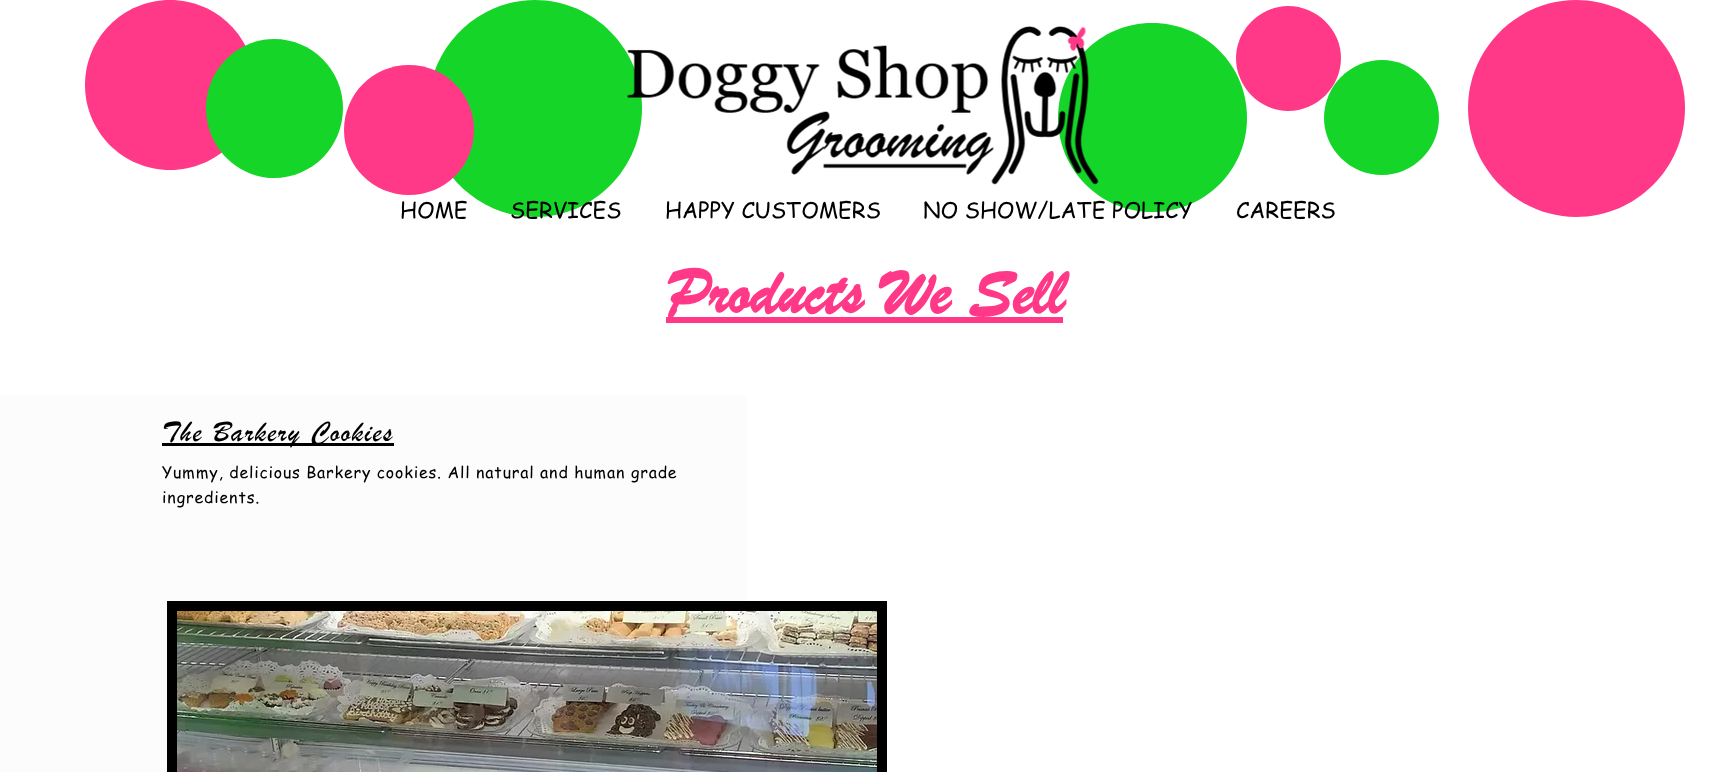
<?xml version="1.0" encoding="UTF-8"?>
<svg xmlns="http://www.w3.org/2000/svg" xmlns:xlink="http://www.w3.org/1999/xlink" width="1736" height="772">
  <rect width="100%" height="100%" fill="#ffffff" />
  <path d="M 255 85 c 0 47 -38 85 -85 85 c -47 0 -85 -38 -85 -85 c 0 -47 38 -85 85 -85 c 47 0 85 38 85 85 z" fill="#ff3988" />
  <path d="M 343 108 c 0 39 -31 70 -69 70 c -37 0 -68 -31 -68 -70 c 0 -38 31 -69 68 -69 c 38 0 69 31 69 69 z" fill="#15d628" />
  <path d="M 642 108 c 0 60 -48 109 -107 109 c -59 0 -107 -49 -107 -109 c 0 -59 48 -108 107 -108 c 59 0 107 49 107 108 z" fill="#15d628" />
  <path d="M 474 130 c 0 36 -29 65 -65 65 c -36 0 -65 -29 -65 -65 c 0 -36 29 -65 65 -65 c 36 0 65 29 65 65 z" fill="#ff3988" />
  <path d="M 1247 118 c 0 52 -42 94 -95 94 c -52 0 -94 -42 -94 -94 c 0 -53 42 -95 94 -95 c 53 0 95 42 95 95 z" fill="#15d628" />
  <image x="627" y="26" width="472" height="159" xlink:href="image1.png" />
  <path d="M 1341 58 c 0 29 -24 53 -53 53 c -28 0 -52 -24 -52 -53 c 0 -28 24 -52 52 -52 c 29 0 53 24 53 52 z" fill="#ff3988" />
  <path d="M 1439 118 c 0 31 -26 57 -57 57 c -32 0 -58 -26 -58 -57 c 0 -32 26 -58 58 -58 c 31 0 57 26 57 58 z" fill="#15d628" />
  <path d="M 1685 108 c 0 60 -49 109 -109 109 c -59 0 -108 -49 -108 -109 c 0 -59 49 -108 108 -108 c 60 0 109 49 109 108 z" fill="#ff3988" />
  <rect x="666" y="317" width="397" height="6" fill="#ff3988" />
  <rect y="395" width="746" height="377" fill="#fcfcfc" />
  <rect x="162" y="443" width="232" height="3" fill="#000000" />
  <rect x="172" y="606" width="710" height="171" fill="none" stroke="#000000" stroke-width="10" />
  <image x="177" y="611" width="700" height="161" xlink:href="image2.png" />
  <text x="400" y="218" style="font-family: 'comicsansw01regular'; font-size: 22px; fill: #000000">HOME</text>
  <text x="510" y="218" style="font-family: 'comicsansw01regular'; font-size: 22px; fill: #000000">SERVICES</text>
  <text x="665" y="218" style="font-family: 'comicsansw01regular'; font-size: 22px; fill: #000000">HAPPY CUSTOMERS</text>
  <text x="923" y="218" style="font-family: 'comicsansw01regular'; font-size: 22px; fill: #000000">NO SHOW/LATE POLICY</text>
  <text x="1236" y="218" style="font-family: 'comicsansw01regular'; font-size: 22px; fill: #000000">CAREERS</text>
  <text x="666" y="313" style="font-family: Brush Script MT; font-size: 68px; font-weight: bold; font-style: italic; fill: #ff3988">Products We Sell</text>
  <text x="162" y="441" style="font-family: Brush Script MT; font-size: 30px; font-style: italic; letter-spacing: 1.5px; fill: #000000">The Barkery Cookies</text>
  <text x="162" y="478" style="font-family: 'comicsansw01regular'; font-size: 16px; letter-spacing: 0.8px; fill: #000000">Yummy, delicious Barkery cookies. All natural and human grade</text>
  <text x="162" y="503" style="font-family: 'comicsansw01regular'; font-size: 16px; letter-spacing: 0.8px; fill: #000000">ingredients.</text>
</svg>
